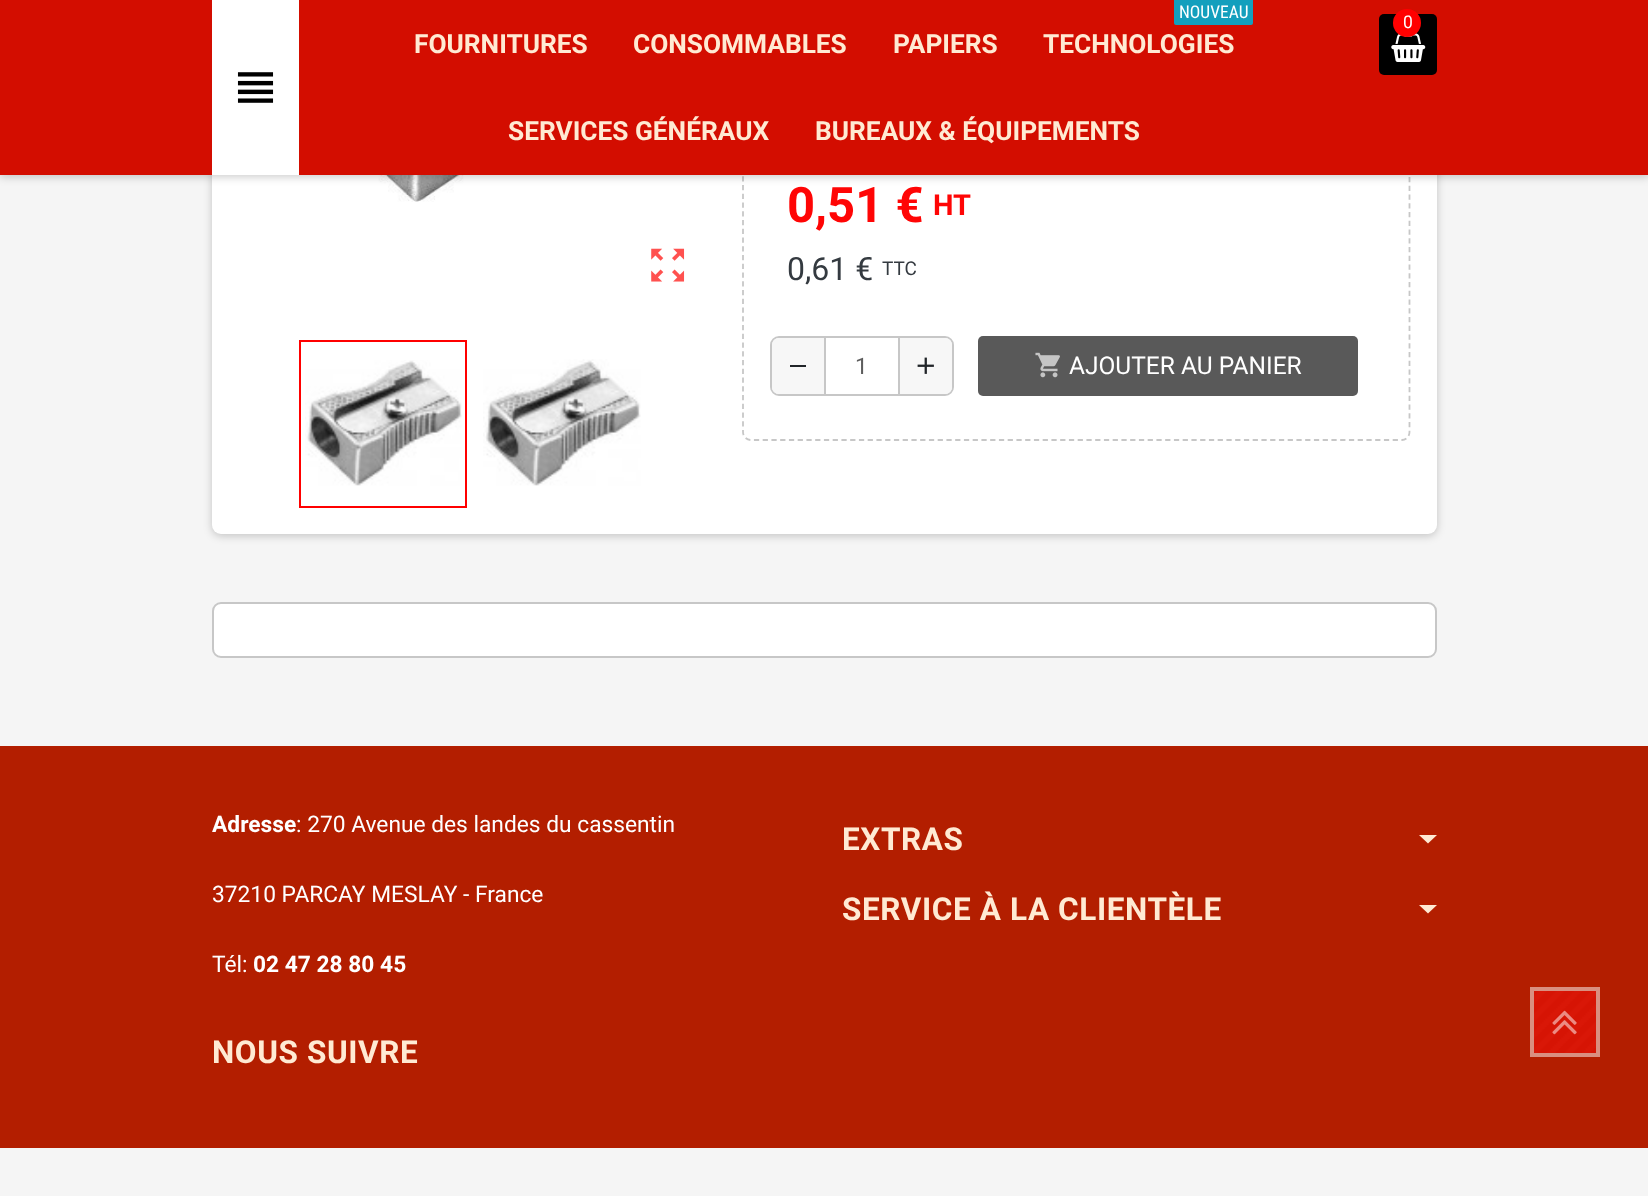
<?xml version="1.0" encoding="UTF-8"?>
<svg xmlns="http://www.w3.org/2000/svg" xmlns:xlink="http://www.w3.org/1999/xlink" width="1648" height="1196">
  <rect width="100%" height="100%" fill="#f5f5f5" />
  <rect x="212" y="-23" width="1225" height="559" rx="9" fill="#000000" fill-opacity="0.2" filter="blur(4.5px)" />
  <rect x="212" y="-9" width="1225" height="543" rx="9" fill="#ffffff" />
  <image x="312" y="175" width="328" height="27" xlink:href="image3.png" />
  <path d="M 751 149.5 h 651 c 4 0 7.5 3.5 7.5 8 v 274.5 c 0 4.5 -3.5 8 -7.5 8 h -651 c -4.5 0 -8 -3.5 -8 -8 v -274.5 c 0 -4.5 3.5 -8 8 -8 z" fill="none" stroke="#c7c7c7" stroke-width="1.8" stroke-dasharray="5.25 3.5" />
  <rect y="2" width="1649" height="175" fill="#000000" fill-opacity="0.2" filter="blur(4.5px)" />
  <rect width="1648" height="175" fill="#d30d00" />
  <rect x="212" width="87" height="175" fill="#ffffff" />
  <image x="237" y="72" width="37" height="31" xlink:href="image1.png" />
  <rect x="1174" y="-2" width="79" height="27" rx="2" fill="#139fbd" />
  <rect x="1379" y="14" width="58" height="61" rx="5" fill="#000000" />
  <image x="1391" y="33" width="35" height="29" xlink:href="image2.png" />
  <circle cx="1407" cy="23" r="14" fill="#ff0000" />
  <image x="651" y="248" width="34" height="34" xlink:href="image4.png" />
  <rect x="300" y="341" width="166" height="166" fill="none" stroke="#ff0000" stroke-width="2" />
  <image x="305" y="360" width="157" height="126" xlink:href="image5.png" />
  <image x="483" y="359" width="158" height="127" xlink:href="image6.png" />
  <rect x="771" y="337" width="182" height="58" rx="8" fill="none" stroke="#c7c7c7" stroke-width="2" />
  <path d="M 779 338 h 45 v 56 h -45 c -4 0 -7 -3 -7 -7 v -42 c 0 -4 3 -7 7 -7 z" fill="#f7f7f7" />
  <rect x="790" y="365" width="16" height="2" fill="#212529" />
  <rect x="898" y="338" width="2" height="56" fill="#c7c7c7" />
  <rect x="824" y="338" width="2" height="56" fill="#c7c7c7" />
  <path d="M 900 338 h 45 c 4 0 7 3 7 7 v 42 c 0 4 -3 7 -7 7 h -45 z" fill="#f7f7f7" />
  <image x="917" y="357" width="17" height="17" xlink:href="image7.png" />
  <rect x="978" y="336" width="380" height="60" rx="5" fill="#595959" />
  <image x="1035" y="352" width="25" height="26" xlink:href="image8.png" />
  <rect x="213" y="603" width="1223" height="54" rx="8" fill="#ffffff" stroke="#c7c7c7" stroke-width="2" />
  <rect y="746" width="1648" height="402" fill="#b31e00" />
  <path d="M 1419 835 h 18 l -9 8.5 z" fill="#ffead3" />
  <path d="M 1419 905 h 18 l -9 8.5 z" fill="#ffead3" />
  <rect x="1534" y="991" width="62" height="62" fill="#d91202" />
  <image x="1534" y="991" width="62" height="62" xlink:href="image9.png" />
  <rect x="1532" y="989" width="66" height="66" fill="none" stroke="#d98f80" stroke-width="4" />
  <image x="1552" y="1010" width="25" height="25" xlink:href="image10.png" />
  <text x="414" y="53" style="font-family: 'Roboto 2'; font-size: 26.25px; font-weight: bold; fill: #ffead3">FOURNITURES</text>
  <text x="633" y="53" style="font-family: 'Roboto 2'; font-size: 26.25px; font-weight: bold; fill: #ffead3">CONSOMMABLES</text>
  <text x="893" y="53" style="font-family: 'Roboto 2'; font-size: 26.25px; font-weight: bold; fill: #ffead3">PAPIERS</text>
  <text x="1179" y="18" style="font-family: Roboto Condensed; font-size: 17.5px; fill: #ffffff">NOUVEAU</text>
  <text x="1043" y="53" style="font-family: 'Roboto 2'; font-size: 26.25px; font-weight: bold; fill: #ffead3">TECHNOLOGIES</text>
  <text x="508" y="140" style="font-family: 'Roboto 2'; font-size: 26.25px; font-weight: bold; fill: #ffead3">SERVICES GÉNÉRAUX</text>
  <text x="815" y="140" style="font-family: 'Roboto 2'; font-size: 26.25px; font-weight: bold; fill: #ffead3">BUREAUX &amp; ÉQUIPEMENTS</text>
  <text x="1403" y="28" style="font-family: Roboto; font-size: 17.5px; fill: #ffffff">0</text>
  <text x="787" y="222" style="font-family: Roboto; font-size: 49px; font-weight: bold; fill: #ff0505">0,51 €</text>
  <text x="933" y="215" style="font-family: Roboto; font-size: 29px; font-weight: bold; fill: #ff0505">HT</text>
  <text x="787" y="280" style="font-family: Roboto; font-size: 32px; fill: #343a40">0,61 €</text>
  <text x="882" y="275" style="font-family: Roboto; font-size: 19px; fill: #343a40">TTC</text>
  <text x="855" y="374" style="font-family: Roboto; font-size: 22.75px; fill: #5d5d5d">1</text>
  <text x="1069" y="374" style="font-family: Roboto; font-size: 24.5px; fill: #ffffff">AJOUTER AU PANIER</text>
  <text x="212" y="832" style="font-family: Roboto; font-size: 22.75px; font-weight: bold; fill: #ffffff">Adresse</text>
  <text x="296" y="832" style="font-family: Roboto; font-size: 22.75px; fill: #ffffff">: 270 Avenue des landes du cassentin</text>
  <text x="212" y="902" style="font-family: Roboto; font-size: 22.75px; fill: #ffffff">37210 PARCAY MESLAY - France</text>
  <text x="212" y="972" style="font-family: Roboto; font-size: 22.75px; fill: #ffffff">Tél:</text>
  <text x="253" y="972" style="font-family: Roboto; font-size: 22.75px; font-weight: bold; fill: #ffffff">02 47 28 80 45</text>
  <text x="212" y="1063" style="font-family: 'Roboto 2'; font-size: 31.5px; font-weight: bold; letter-spacing: 0.6px; fill: #ffead3">NOUS SUIVRE</text>
  <text x="842" y="850" style="font-family: 'Roboto 2'; font-size: 31.5px; font-weight: bold; letter-spacing: 0.6px; fill: #ffead3">EXTRAS</text>
  <text x="842" y="920" style="font-family: 'Roboto 2'; font-size: 31.5px; font-weight: bold; letter-spacing: 0.6px; fill: #ffead3">SERVICE À LA CLIENTÈLE</text>
</svg>
